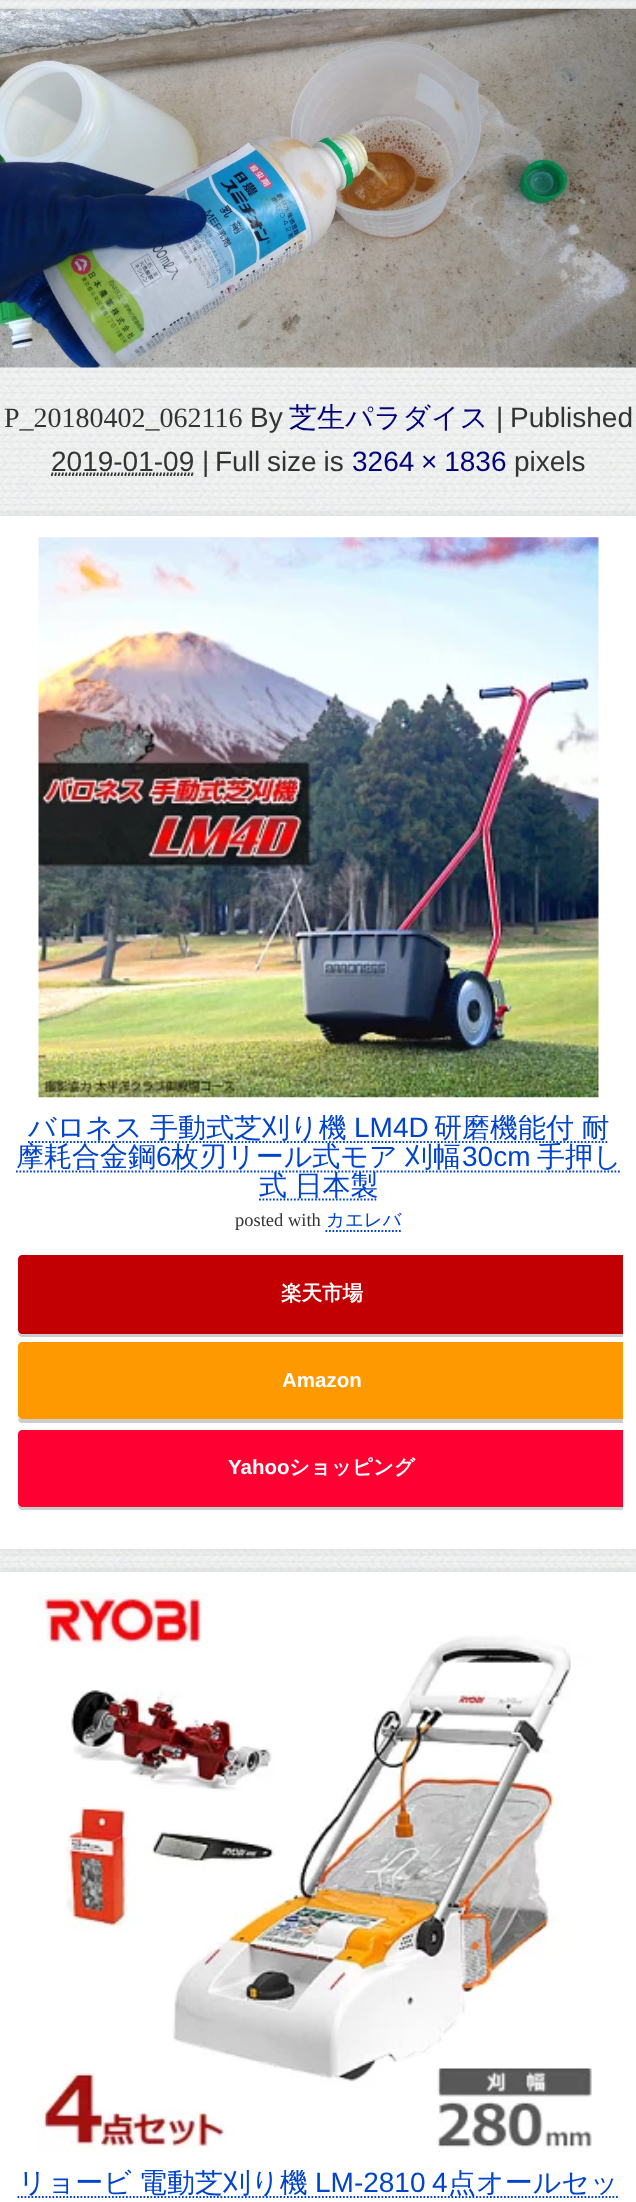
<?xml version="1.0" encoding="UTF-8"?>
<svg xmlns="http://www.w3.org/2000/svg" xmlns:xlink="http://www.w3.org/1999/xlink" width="636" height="2202">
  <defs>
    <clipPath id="clip1"><rect x="14" y="1115" width="609" height="399" /></clipPath>
    <clipPath id="clip2"><rect x="14" y="2170" width="609" height="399" /></clipPath>
  </defs>
  <rect width="100%" height="100%" fill="#ffffff" />
  <image x="0" y="0" width="636" height="1572" xlink:href="image1.png" />
  <image x="0" y="8" width="636" height="360" xlink:href="image2.png" />
  <path d="M 51 475 h 143" fill="none" stroke="#333333" stroke-width="1.8" stroke-dasharray="1.75 1.75" />
  <path d="M 51.5 473.5 h 143" fill="none" stroke="#333333" stroke-width="1.8" stroke-dasharray="1.75 1.75" />
  <rect y="516" width="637" height="1033" fill="#000000" fill-opacity="0.1" filter="blur(4.5px)" />
  <rect y="516" width="636" height="1033" fill="#ffffff" />
  <image x="38" y="537" width="561" height="561" xlink:href="image3.png" />
  <path d="M 28 1142 h 581" fill="none" stroke="#0044cc" stroke-width="1.8" stroke-dasharray="1.75 1.75" />
  <path d="M 16 1171.5 h 605" fill="none" stroke="#0044cc" stroke-width="1.8" stroke-dasharray="1.75 1.75" />
  <path d="M 259 1199.5 h 119" fill="none" stroke="#0044cc" stroke-width="1.8" stroke-dasharray="1.75 1.75" />
  <path d="M 325.5 1231 h 77" fill="none" stroke="#0044cc" stroke-width="1.8" stroke-dasharray="1.75 1.75" />
  <g clip-path="url(#clip1)">
    <path d="M 18 1332 v 1 c 0 2 2 4 4 4 h 601 c 2 0 4 -2 4 -4 v -71 l -1 -2 v 70 c 0 2 -1 4 -3 4 h -602 c -1 0 -2 -1 -3 -2 z" fill="#cccccc" />
  </g>
  <path d="M 22 1255 h 601 v 79 h -601 c -2 0 -4 -2 -4 -4 v -71 c 0 -2 2 -4 4 -4 z" fill="#c20004" />
  <g clip-path="url(#clip1)">
    <path d="M 18 1418 v 1 c 0 2 2 4 4 4 h 601 c 2 0 4 -2 4 -4 v -69 l -1 -2 v 68 c 0 2 -1 3 -3 3 h -602 c -1 0 -2 0 -3 -1 z" fill="#cccccc" />
  </g>
  <path d="M 22 1342 h 601 v 77 h -601 c -2 0 -4 -2 -4 -4 v -69 c 0 -2 2 -4 4 -4 z" fill="#ff9901" />
  <g clip-path="url(#clip1)">
    <path d="M 18 1505 v 1 c 0 2 2 4 4 4 h 601 c 2 0 4 -2 4 -4 v -69 l -1 -2 v 68 c 0 2 -1 4 -3 4 h -602 c -1 0 -2 -1 -3 -2 z" fill="#cccccc" />
  </g>
  <path d="M 22 1430 h 601 v 77 h -601 c -2 0 -4 -2 -4 -4 v -69 c 0 -2 2 -4 4 -4 z" fill="#ff0033" />
  <rect y="1572" width="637" height="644" fill="#000000" fill-opacity="0.1" filter="blur(4.5px)" />
  <rect y="1572" width="636" height="630" fill="#ffffff" />
  <image x="38" y="1592" width="554" height="561" xlink:href="image4.png" />
  <path d="M 17.5 2197 h 602" fill="none" stroke="#0044cc" stroke-width="1.8" stroke-dasharray="1.75 1.75" />
  <text x="4" y="427" style="font-family: Liberation Serif; font-size: 28px; fill: #333333">P_20180402_062116</text>
  <text x="250" y="427" style="font-family: Liberation Sans; font-size: 28px; fill: #333333">By</text>
  <text x="289" y="427" style="font-family: WenQuanYi Zen Hei; font-size: 28px; font-weight: 500; fill: #02007a">芝生パラダイス</text>
  <text x="496" y="427" style="font-family: Liberation Sans; font-size: 28px; fill: #333333">|</text>
  <text x="510" y="427" style="font-family: Liberation Sans; font-size: 28px; fill: #333333">Published</text>
  <text x="51" y="471" style="font-family: Liberation Sans; font-size: 28px; fill: #333333">2019-01-09</text>
  <text x="202" y="471" style="font-family: Liberation Sans; font-size: 28px; fill: #333333">|</text>
  <text x="215" y="471" word-spacing="-1" style="font-family: Liberation Sans; font-size: 28px; fill: #333333">Full size is</text>
  <text x="352" y="471" word-spacing="-1" style="font-family: Liberation Sans; font-size: 28px; fill: #02007a">3264 × 1836</text>
  <text x="514" y="471" style="font-family: Liberation Sans; font-size: 28px; fill: #333333">pixels</text>
  <g clip-path="url(#clip1)">
    <text x="28" y="1137" word-spacing="-1" style="font-family: WenQuanYi Zen Hei; font-size: 28px; font-weight: 500; fill: #0044cc">バロネス 手動式芝刈り機</text>
  </g>
  <text x="354" y="1137" style="font-family: Liberation Sans; font-size: 28px; fill: #0044cc">LM4D</text>
  <g clip-path="url(#clip1)">
    <text x="434" y="1137" word-spacing="-1" style="font-family: WenQuanYi Zen Hei; font-size: 28px; font-weight: 500; fill: #0044cc">研磨機能付 耐</text>
  </g>
  <text x="16" y="1166" style="font-family: WenQuanYi Zen Hei; font-size: 28px; font-weight: 500; fill: #0044cc">摩耗合金鋼</text>
  <text x="156" y="1166" style="font-family: Liberation Sans; font-size: 28px; fill: #0044cc">6</text>
  <text x="171" y="1166" word-spacing="-1" style="font-family: WenQuanYi Zen Hei; font-size: 28px; font-weight: 500; fill: #0044cc">枚刃リール式モア 刈幅</text>
  <text x="462" y="1166" style="font-family: Liberation Sans; font-size: 28px; fill: #0044cc">30cm</text>
  <text x="537" y="1166" style="font-family: WenQuanYi Zen Hei; font-size: 28px; font-weight: 500; fill: #0044cc">手押し</text>
  <text x="259" y="1195" word-spacing="-1" style="font-family: WenQuanYi Zen Hei; font-size: 28px; font-weight: 500; fill: #0044cc">式 日本製</text>
  <text x="235" y="1226" style="font-family: Liberation Serif; font-size: 18.5px; fill: #333333">posted with</text>
  <text x="326" y="1226" style="font-family: WenQuanYi Zen Hei; font-size: 18.5px; font-weight: 500; fill: #0044cc">カエレバ</text>
  <text x="281" y="1300" style="font-family: WenQuanYi Zen Hei; font-size: 20.5px; font-weight: bold; fill: #ffffff">楽天市場</text>
  <text x="282" y="1387" style="font-family: Liberation Sans; font-size: 20.5px; font-weight: bold; fill: #ffffff">Amazon</text>
  <text x="228" y="1474" style="font-family: Liberation Sans; font-size: 20.5px; font-weight: bold; fill: #ffffff">Yahoo</text>
  <text x="289" y="1474" style="font-family: WenQuanYi Zen Hei; font-size: 20.5px; font-weight: bold; fill: #ffffff">ショッピング</text>
  <text x="18" y="2192" style="font-family: WenQuanYi Zen Hei; font-size: 28px; font-weight: 500; fill: #0044cc">リョービ</text>
  <g clip-path="url(#clip2)">
    <text x="139" y="2192" style="font-family: WenQuanYi Zen Hei; font-size: 28px; font-weight: 500; fill: #0044cc">電動芝刈り機</text>
  </g>
  <text x="315" y="2192" style="font-family: Liberation Sans; font-size: 28px; fill: #0044cc">LM-2810</text>
  <text x="432" y="2192" style="font-family: Liberation Sans; font-size: 28px; fill: #0044cc">4</text>
  <g clip-path="url(#clip2)">
    <text x="448" y="2192" style="font-family: WenQuanYi Zen Hei; font-size: 28px; font-weight: 500; fill: #0044cc">点オールセッ</text>
  </g>
</svg>
